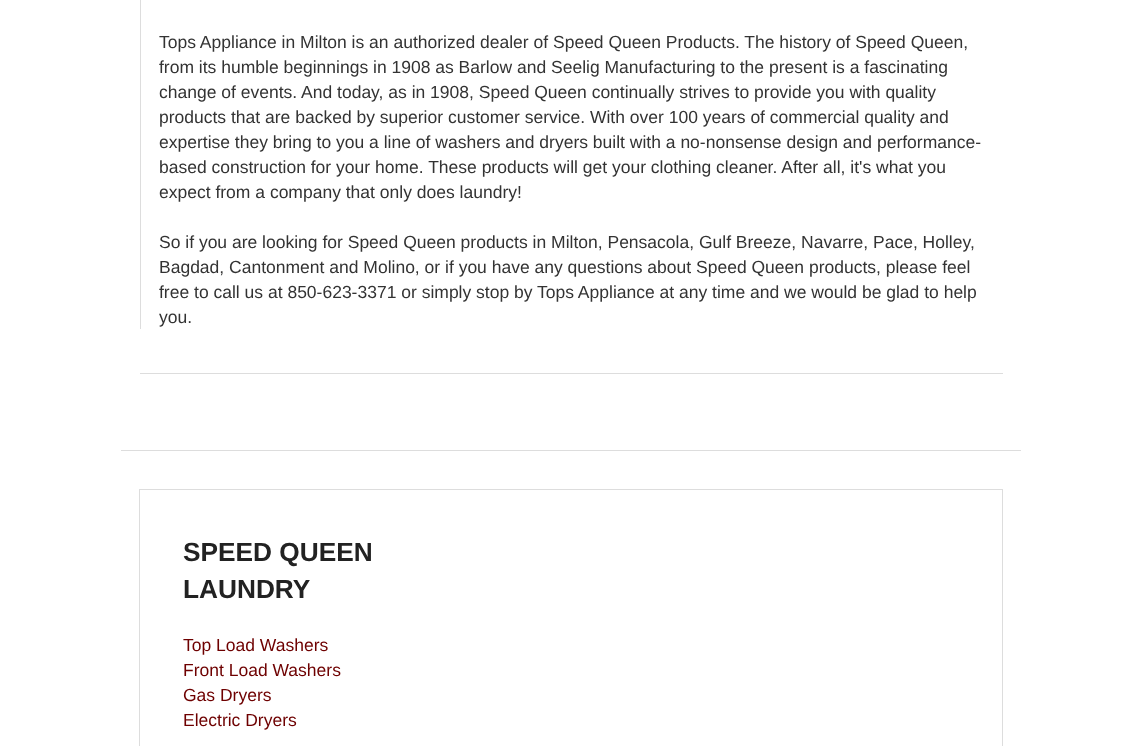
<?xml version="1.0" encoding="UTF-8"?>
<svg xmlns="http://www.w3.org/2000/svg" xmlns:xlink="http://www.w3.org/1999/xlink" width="1141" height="746">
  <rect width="100%" height="100%" fill="#ffffff" />
  <rect x="140" y="373" width="863" height="1" fill="#dddddd" />
  <rect x="140" width="1" height="329" fill="#dddddd" />
  <rect x="121" y="450" width="900" height="1" fill="#dddddd" />
  <rect x="139.5" y="489.5" width="863" height="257" fill="none" stroke="#dddddd" />
  <text x="159" y="48" style="font-family: Liberation Sans; font-size: 17.5px; fill: #333333">Tops Appliance in Milton is an authorized dealer of Speed Queen Products. The history of Speed Queen,</text>
  <text x="159" y="73" style="font-family: Liberation Sans; font-size: 17.5px; fill: #333333">from its humble beginnings in 1908 as Barlow and Seelig Manufacturing to the present is a fascinating</text>
  <text x="159" y="98" style="font-family: Liberation Sans; font-size: 17.5px; fill: #333333">change of events. And today, as in 1908, Speed Queen continually strives to provide you with quality</text>
  <text x="159" y="123" style="font-family: Liberation Sans; font-size: 17.5px; fill: #333333">products that are backed by superior customer service. With over 100 years of commercial quality and</text>
  <text x="159" y="148" style="font-family: Liberation Sans; font-size: 17.5px; fill: #333333">expertise they bring to you a line of washers and dryers built with a no-nonsense design and performance-</text>
  <text x="159" y="173" style="font-family: Liberation Sans; font-size: 17.5px; fill: #333333">based construction for your home. These products will get your clothing cleaner. After all, it's what you</text>
  <text x="159" y="198" style="font-family: Liberation Sans; font-size: 17.5px; fill: #333333">expect from a company that only does laundry!</text>
  <text x="159" y="248" style="font-family: Liberation Sans; font-size: 17.5px; fill: #333333">So if you are looking for Speed Queen products in Milton, Pensacola, Gulf Breeze, Navarre, Pace, Holley,</text>
  <text x="159" y="273" style="font-family: Liberation Sans; font-size: 17.5px; fill: #333333">Bagdad, Cantonment and Molino, or if you have any questions about Speed Queen products, please feel</text>
  <text x="159" y="298" style="font-family: Liberation Sans; font-size: 17.5px; fill: #333333">free to call us at 850-623-3371 or simply stop by</text>
  <text x="537" y="298" style="font-family: Liberation Sans; font-size: 17.5px; fill: #333333">Tops Appliance at any time and we would be glad to help</text>
  <text x="159" y="323" style="font-family: Liberation Sans; font-size: 17.5px; fill: #333333">you.</text>
  <text x="183" y="561" style="font-family: Liberation Sans; font-size: 26.25px; font-weight: bold; fill: #222222">SPEED QUEEN</text>
  <text x="183" y="598" style="font-family: Liberation Sans; font-size: 26.25px; font-weight: bold; fill: #222222">LAUNDRY</text>
  <text x="183" y="651" style="font-family: Liberation Sans; font-size: 17.5px; fill: #6e0000">Top Load Washers</text>
  <text x="183" y="676" style="font-family: Liberation Sans; font-size: 17.5px; fill: #6e0000">Front Load Washers</text>
  <text x="183" y="701" style="font-family: Liberation Sans; font-size: 17.5px; fill: #6e0000">Gas Dryers</text>
  <text x="183" y="726" style="font-family: Liberation Sans; font-size: 17.5px; fill: #6e0000">Electric Dryers</text>
</svg>
